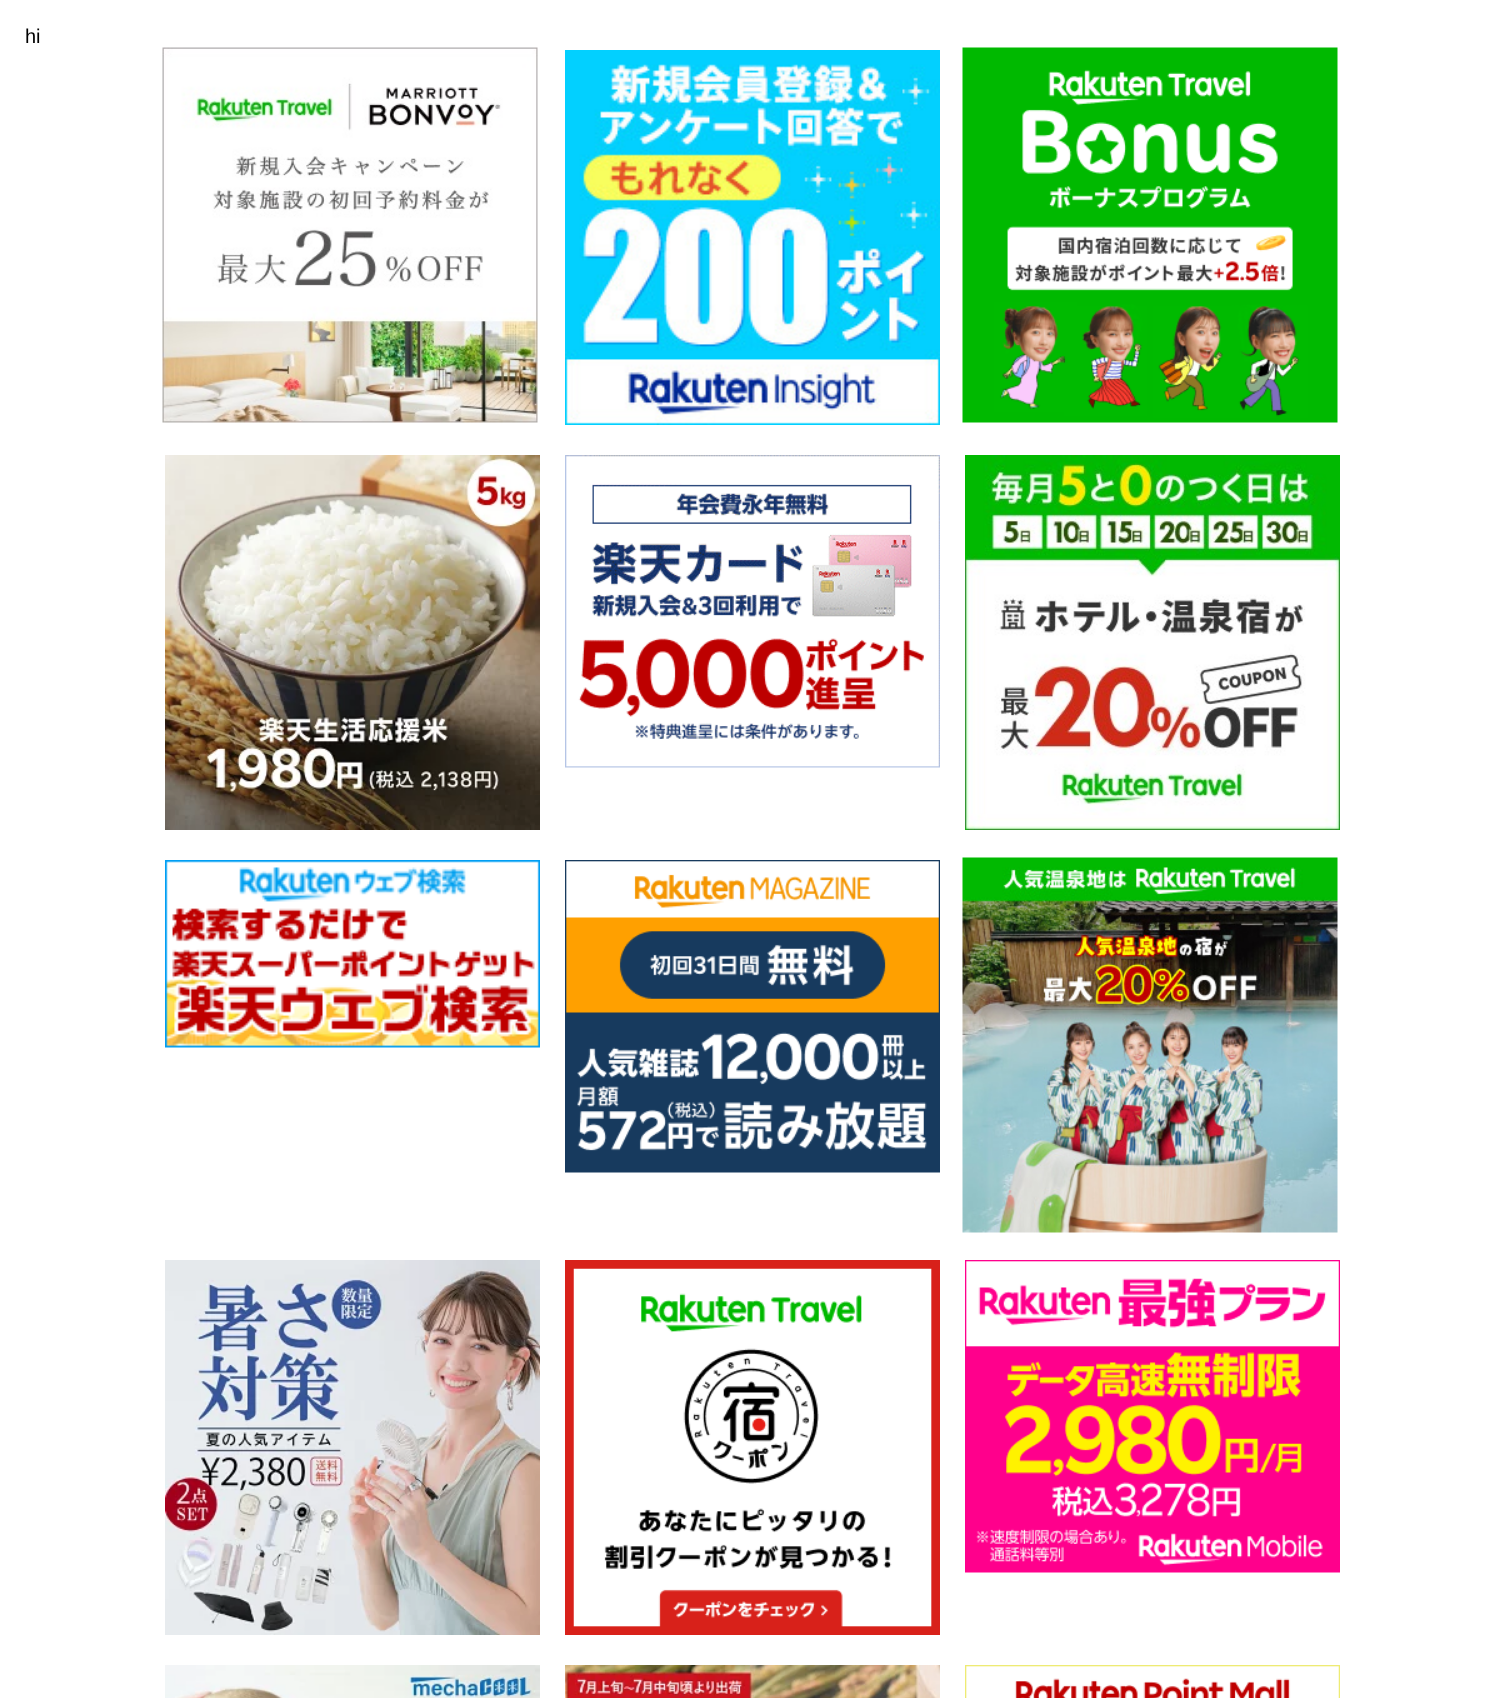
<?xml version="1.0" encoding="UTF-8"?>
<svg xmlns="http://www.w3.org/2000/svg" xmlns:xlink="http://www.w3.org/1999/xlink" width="1499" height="1698">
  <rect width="100%" height="100%" fill="#ffffff" />
  <image x="162" y="47" width="376" height="376" xlink:href="image1.png" />
  <image x="565" y="50" width="375" height="375" xlink:href="image2.png" />
  <image x="962" y="47" width="376" height="376" xlink:href="image3.png" />
  <image x="165" y="455" width="375" height="375" xlink:href="image4.png" />
  <image x="565" y="455" width="375" height="313" xlink:href="image5.png" />
  <image x="965" y="455" width="375" height="375" xlink:href="image6.png" />
  <image x="165" y="860" width="375" height="188" xlink:href="image7.png" />
  <image x="565" y="860" width="375" height="313" xlink:href="image8.png" />
  <image x="962" y="857" width="376" height="376" xlink:href="image9.png" />
  <image x="165" y="1260" width="375" height="375" xlink:href="image10.png" />
  <image x="565" y="1260" width="375" height="375" xlink:href="image11.png" />
  <image x="965" y="1260" width="375" height="313" xlink:href="image12.png" />
  <image x="165" y="1665" width="375" height="33" xlink:href="image13.png" />
  <image x="565" y="1665" width="375" height="33" xlink:href="image14.png" />
  <image x="965" y="1665" width="375" height="33" xlink:href="image15.png" />
  <text x="25" y="43" style="font-family: Liberation Sans; font-size: 20px; fill: #000000">hi</text>
</svg>
